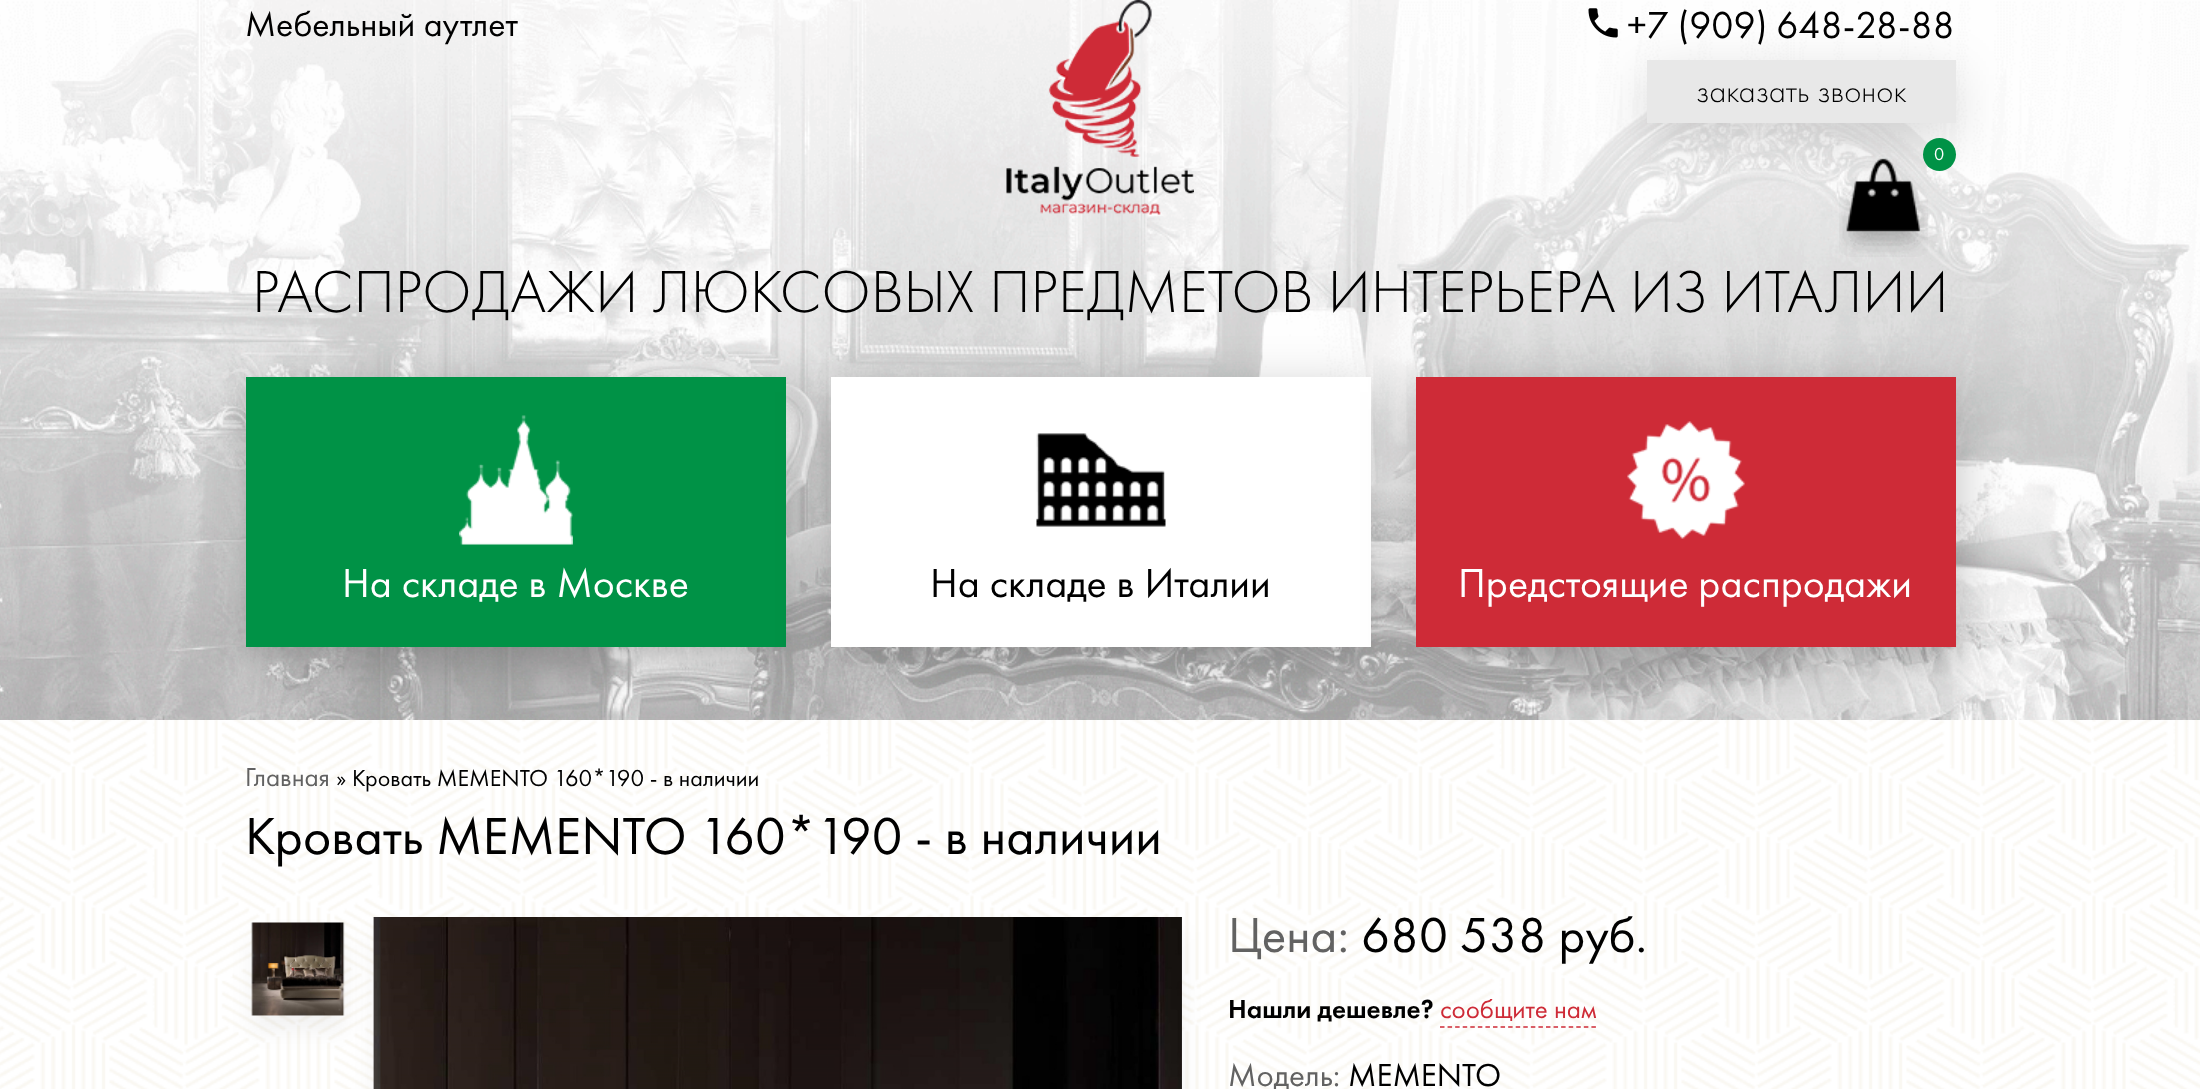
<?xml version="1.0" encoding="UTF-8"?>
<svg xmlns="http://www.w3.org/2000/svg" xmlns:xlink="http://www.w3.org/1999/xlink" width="2200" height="1089">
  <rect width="100%" height="100%" fill="#ffffff" />
  <image x="0" y="720" width="2200" height="369" xlink:href="image1.png" />
  <image x="0" y="0" width="2200" height="720" xlink:href="image2.png" />
  <image x="1006" y="0" width="188" height="215" xlink:href="image3.png" />
  <image x="1588" y="8" width="30" height="30" xlink:href="image4.png" />
  <rect x="1647" y="75" width="309" height="63" fill="#000000" fill-opacity="0.15" filter="blur(26px)" />
  <rect x="1647" y="60" width="309" height="63" fill="#e8e8e8" />
  <image x="1839" y="158" width="89" height="99" xlink:href="image5.png" />
  <circle cx="1939.5" cy="154.5" r="16.5" fill="#009246" />
  <rect x="246" y="392" width="540" height="270" fill="#000000" fill-opacity="0.25" filter="blur(26px)" />
  <rect x="246" y="377" width="540" height="270" fill="#009246" />
  <image x="459" y="415" width="114" height="130" xlink:href="image6.png" />
  <rect x="831" y="392" width="540" height="270" fill="#000000" fill-opacity="0.25" filter="blur(26px)" />
  <rect x="831" y="377" width="540" height="270" fill="#ffffff" />
  <image x="1036" y="433" width="130" height="94" xlink:href="image7.png" />
  <rect x="1416" y="392" width="540" height="270" fill="#000000" fill-opacity="0.25" filter="blur(26px)" />
  <rect x="1416" y="377" width="540" height="270" fill="#ce2b37" />
  <image x="1627" y="421" width="118" height="118" xlink:href="image8.png" />
  <rect x="252" y="938" width="92" height="93" fill="#000000" fill-opacity="0.05" filter="blur(11px)" />
  <image x="251" y="922" width="94" height="94" xlink:href="image9.png" />
  <rect x="374" y="932" width="808" height="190" fill="#000000" fill-opacity="0.05" filter="blur(11px)" />
  <image x="373" y="917" width="809" height="172" xlink:href="image10.png" />
  <path d="M 1440 1027 h 156" fill="none" stroke="#ce2b37" stroke-width="1.5" stroke-dasharray="4.5 3.07" />
  <text x="245" y="36" style="font-family: Futura PT; font-size: 36px; fill: #000000">Мебельный аутлет</text>
  <text x="1627" y="38" style="font-family: Futura PT; font-size: 39px; fill: #000000">+7 (909) 648-28-88</text>
  <text x="1696" y="102" style="font-family: Futura PT; font-size: 33px; font-weight: 300; fill: #000000">заказать звонок</text>
  <text x="1934" y="160" style="font-family: Futura PT; font-size: 18px; fill: #ffffff">0</text>
  <text x="252" y="312" style="font-family: Futura PT; font-size: 61.5px; font-weight: 300; fill: #000000">РАСПРОДАЖИ ЛЮКСОВЫХ ПРЕДМЕТОВ ИНТЕРЬЕРА ИЗ ИТАЛИИ</text>
  <text x="342" y="597" style="font-family: Futura PT; font-size: 42px; fill: #ffffff">На складе в Москве</text>
  <text x="930" y="597" style="font-family: Futura PT; font-size: 42px; fill: #000000">На складе в Италии</text>
  <text x="1458" y="597" style="font-family: Futura PT; font-size: 42px; fill: #ffffff">Предстоящие распродажи</text>
  <text x="245" y="786" style="font-family: Futura PT; font-size: 27px; fill: #626262">Главная</text>
  <text x="336" y="786" style="font-family: Futura PT; font-size: 24px; fill: #000000">» Кровать MEMENTO 160*190 - в наличии</text>
  <text x="245" y="854" style="font-family: Futura PT; font-size: 54px; fill: #000000">Кровать MEMENTO 160*190 - в наличии</text>
  <text x="1228" y="952" style="font-family: Futura PT; font-size: 51px; fill: #626262">Цена:</text>
  <text x="1361" y="952" style="font-family: Futura PT; font-size: 51px; fill: #000000">680 538 руб.</text>
  <text x="1228" y="1018" style="font-family: Futura PT; font-size: 27px; font-weight: 500; fill: #000000">Нашли дешевле?</text>
  <text x="1440" y="1018" style="font-family: Futura PT; font-size: 27px; fill: #ce2b37">сообщите нам</text>
  <text x="1228" y="1086" style="font-family: Futura PT; font-size: 33px; fill: #626262">Модель:</text>
  <text x="1348" y="1086" style="font-family: Futura PT; font-size: 33px; fill: #000000">MEMENTO</text>
</svg>
